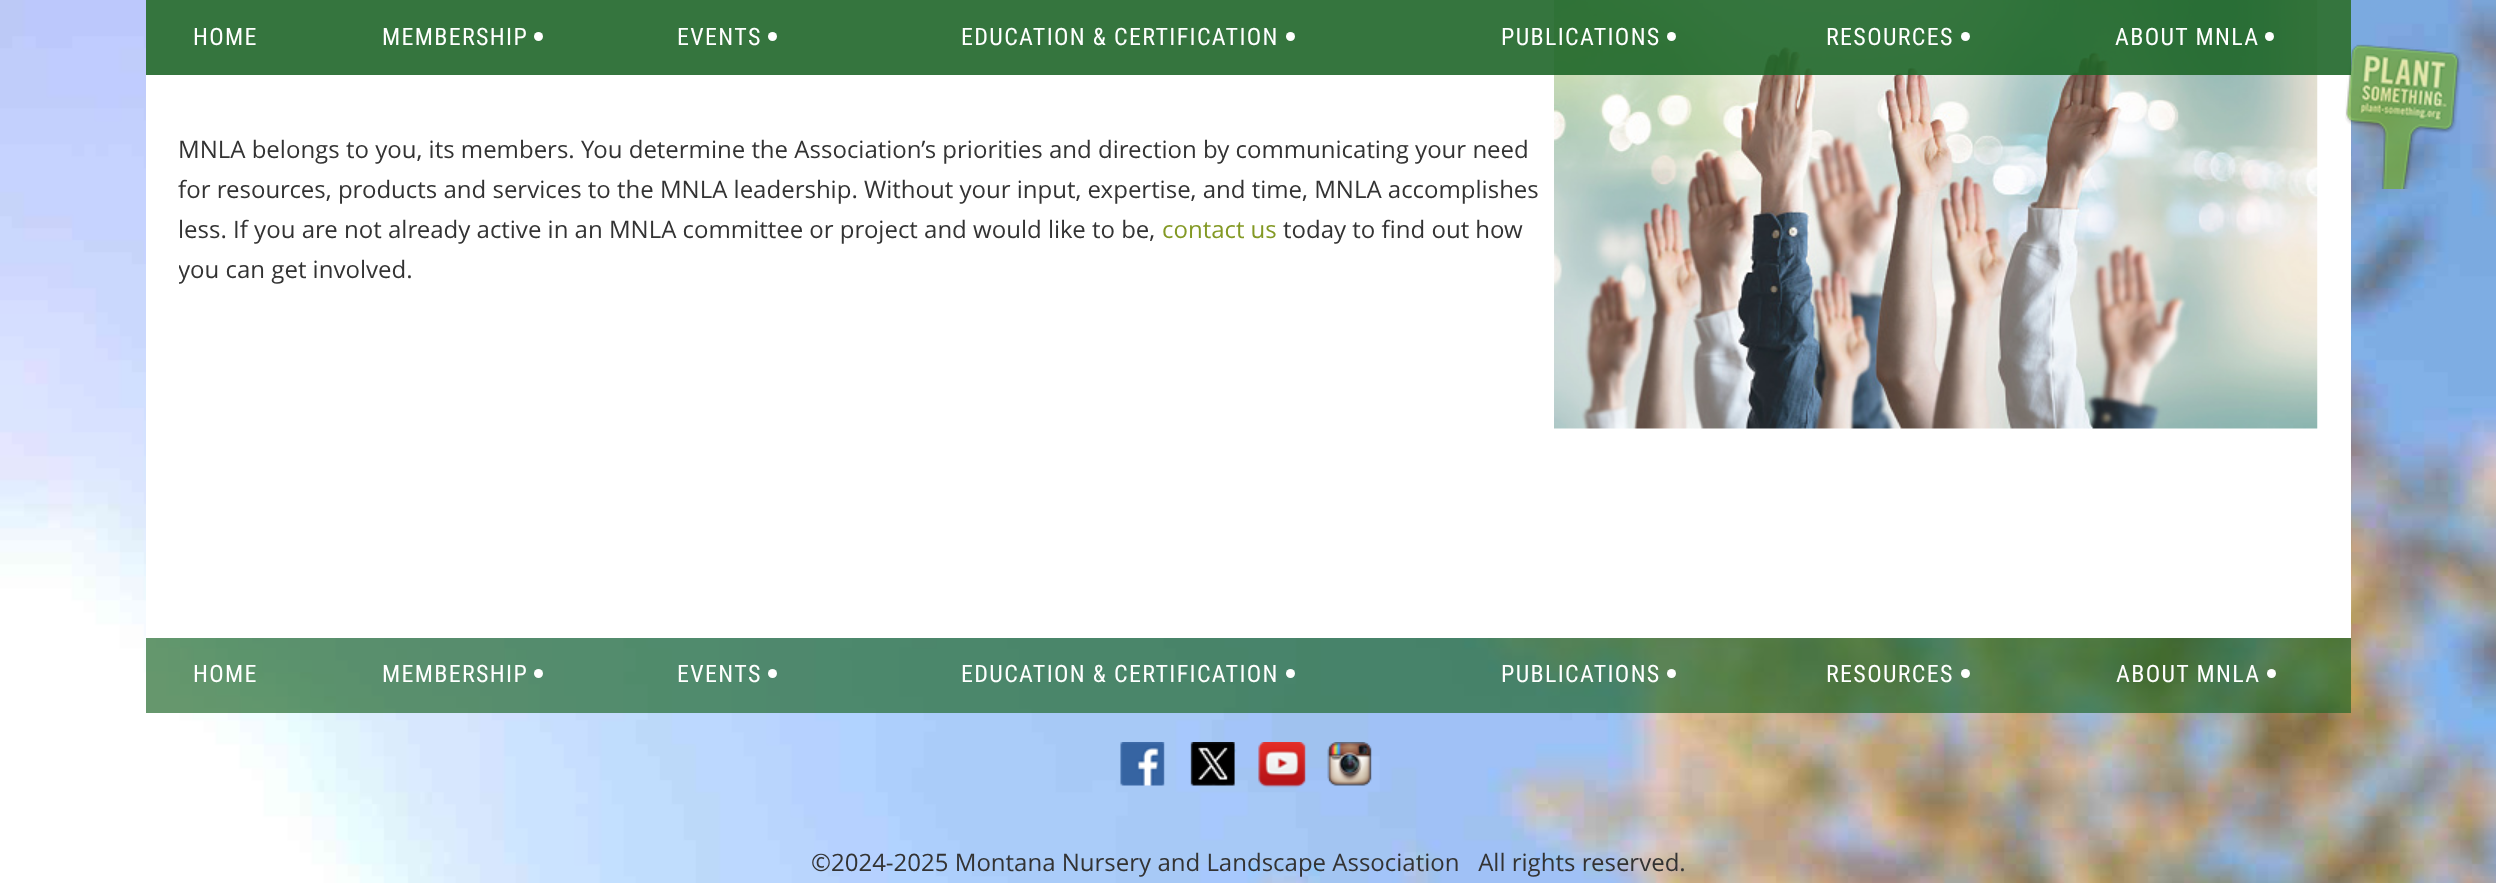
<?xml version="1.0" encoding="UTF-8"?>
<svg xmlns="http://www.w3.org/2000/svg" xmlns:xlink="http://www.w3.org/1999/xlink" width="2496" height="883">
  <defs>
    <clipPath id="clip1"><rect x="179" width="2139" height="507" /></clipPath>
  </defs>
  <rect width="100%" height="100%" fill="#ffffff" />
  <image x="0" y="0" width="2496" height="883" xlink:href="image1.png" />
  <rect x="146" width="2205" height="638" fill="#ffffff" />
  <image x="2345" y="44" width="117" height="145" xlink:href="image2.png" />
  <image x="1554" y="0" width="764" height="429" xlink:href="image3.png" />
  <rect x="146" width="2205" height="75" fill="#1e6628" fill-opacity="0.68" />
  <rect x="146" width="2205" height="75" fill="#1e6628" fill-opacity="0.68" />
  <circle cx="538.5" cy="36.5" r="4.5" fill="#ffffff" />
  <circle cx="772.5" cy="36.5" r="4.5" fill="#ffffff" />
  <circle cx="1290.5" cy="36.5" r="4.5" fill="#ffffff" />
  <circle cx="1671.5" cy="36.5" r="4.5" fill="#ffffff" />
  <circle cx="1965.5" cy="36.5" r="4.5" fill="#ffffff" />
  <circle cx="2269.5" cy="36.5" r="4.5" fill="#ffffff" />
  <rect x="146" y="638" width="2205" height="75" fill="#1e6628" fill-opacity="0.68" />
  <circle cx="538.5" cy="673.5" r="4.5" fill="#ffffff" />
  <circle cx="772.5" cy="673.5" r="4.5" fill="#ffffff" />
  <circle cx="1290.5" cy="673.5" r="4.5" fill="#ffffff" />
  <circle cx="1671.5" cy="673.5" r="4.5" fill="#ffffff" />
  <circle cx="1965.5" cy="673.5" r="4.5" fill="#ffffff" />
  <circle cx="2271.5" cy="673.5" r="4.5" fill="#ffffff" />
  <image x="1120" y="742" width="45" height="44" xlink:href="image4.png" />
  <image x="1190" y="742" width="47" height="44" xlink:href="image5.png" />
  <image x="1258" y="742" width="48" height="46" xlink:href="image6.png" />
  <image x="1327" y="742" width="45" height="44" xlink:href="image7.png" />
  <text x="193" y="45" style="font-family: Roboto Condensed; font-size: 24px; letter-spacing: 1.35px; fill: #ffffff">HOME</text>
  <text x="382" y="45" style="font-family: Roboto Condensed; font-size: 24px; letter-spacing: 1.35px; fill: #ffffff">MEMBERSHIP</text>
  <text x="677" y="45" style="font-family: Roboto Condensed; font-size: 24px; letter-spacing: 1.35px; fill: #ffffff">EVENTS</text>
  <text x="961" y="45" style="font-family: Roboto Condensed; font-size: 24px; letter-spacing: 1.35px; fill: #ffffff">EDUCATION &amp; CERTIFICATION</text>
  <text x="1501" y="45" style="font-family: Roboto Condensed; font-size: 24px; letter-spacing: 1.35px; fill: #ffffff">PUBLICATIONS</text>
  <text x="1826" y="45" style="font-family: Roboto Condensed; font-size: 24px; letter-spacing: 1.35px; fill: #ffffff">RESOURCES</text>
  <text x="2115" y="45" style="font-family: Roboto Condensed; font-size: 24px; letter-spacing: 1.35px; fill: #ffffff">ABOUT MNLA</text>
  <text x="178" y="158" style="font-family: Open Sans; font-size: 24px; fill: #333333">MNLA belongs to you, its members. You determine the Association’s priorities and direction by communicating your need</text>
  <text x="178" y="198" style="font-family: Open Sans; font-size: 24px; fill: #333333">for resources, products and services to the MNLA leadership. Without your input, expertise, and time, MNLA accomplishes</text>
  <text x="178" y="238" style="font-family: Open Sans; font-size: 24px; fill: #333333">less. If you are not already active in an MNLA committee or project and would like to be,</text>
  <text x="1162" y="238" style="font-family: Open Sans; font-size: 24px; fill: #839924">contact us</text>
  <text x="1283" y="238" style="font-family: Open Sans; font-size: 24px; fill: #333333">today to find out how</text>
  <g clip-path="url(#clip1)">
    <text x="178" y="278" style="font-family: Open Sans; font-size: 24px; fill: #333333">you can get involved.</text>
  </g>
  <text x="193" y="682" style="font-family: Roboto Condensed; font-size: 24px; letter-spacing: 1.35px; fill: #ffffff">HOME</text>
  <text x="382" y="682" style="font-family: Roboto Condensed; font-size: 24px; letter-spacing: 1.35px; fill: #ffffff">MEMBERSHIP</text>
  <text x="677" y="682" style="font-family: Roboto Condensed; font-size: 24px; letter-spacing: 1.35px; fill: #ffffff">EVENTS</text>
  <text x="961" y="682" style="font-family: Roboto Condensed; font-size: 24px; letter-spacing: 1.35px; fill: #ffffff">EDUCATION &amp; CERTIFICATION</text>
  <text x="1501" y="682" style="font-family: Roboto Condensed; font-size: 24px; letter-spacing: 1.35px; fill: #ffffff">PUBLICATIONS</text>
  <text x="1826" y="682" style="font-family: Roboto Condensed; font-size: 24px; letter-spacing: 1.35px; fill: #ffffff">RESOURCES</text>
  <text x="2116" y="682" style="font-family: Roboto Condensed; font-size: 24px; letter-spacing: 1.35px; fill: #ffffff">ABOUT MNLA</text>
  <text x="811" y="871" style="font-family: Open Sans; font-size: 24px; fill: #333333" xml:space="preserve">©2024-2025 Montana Nursery and Landscape Association   All rights reserved.</text>
</svg>
